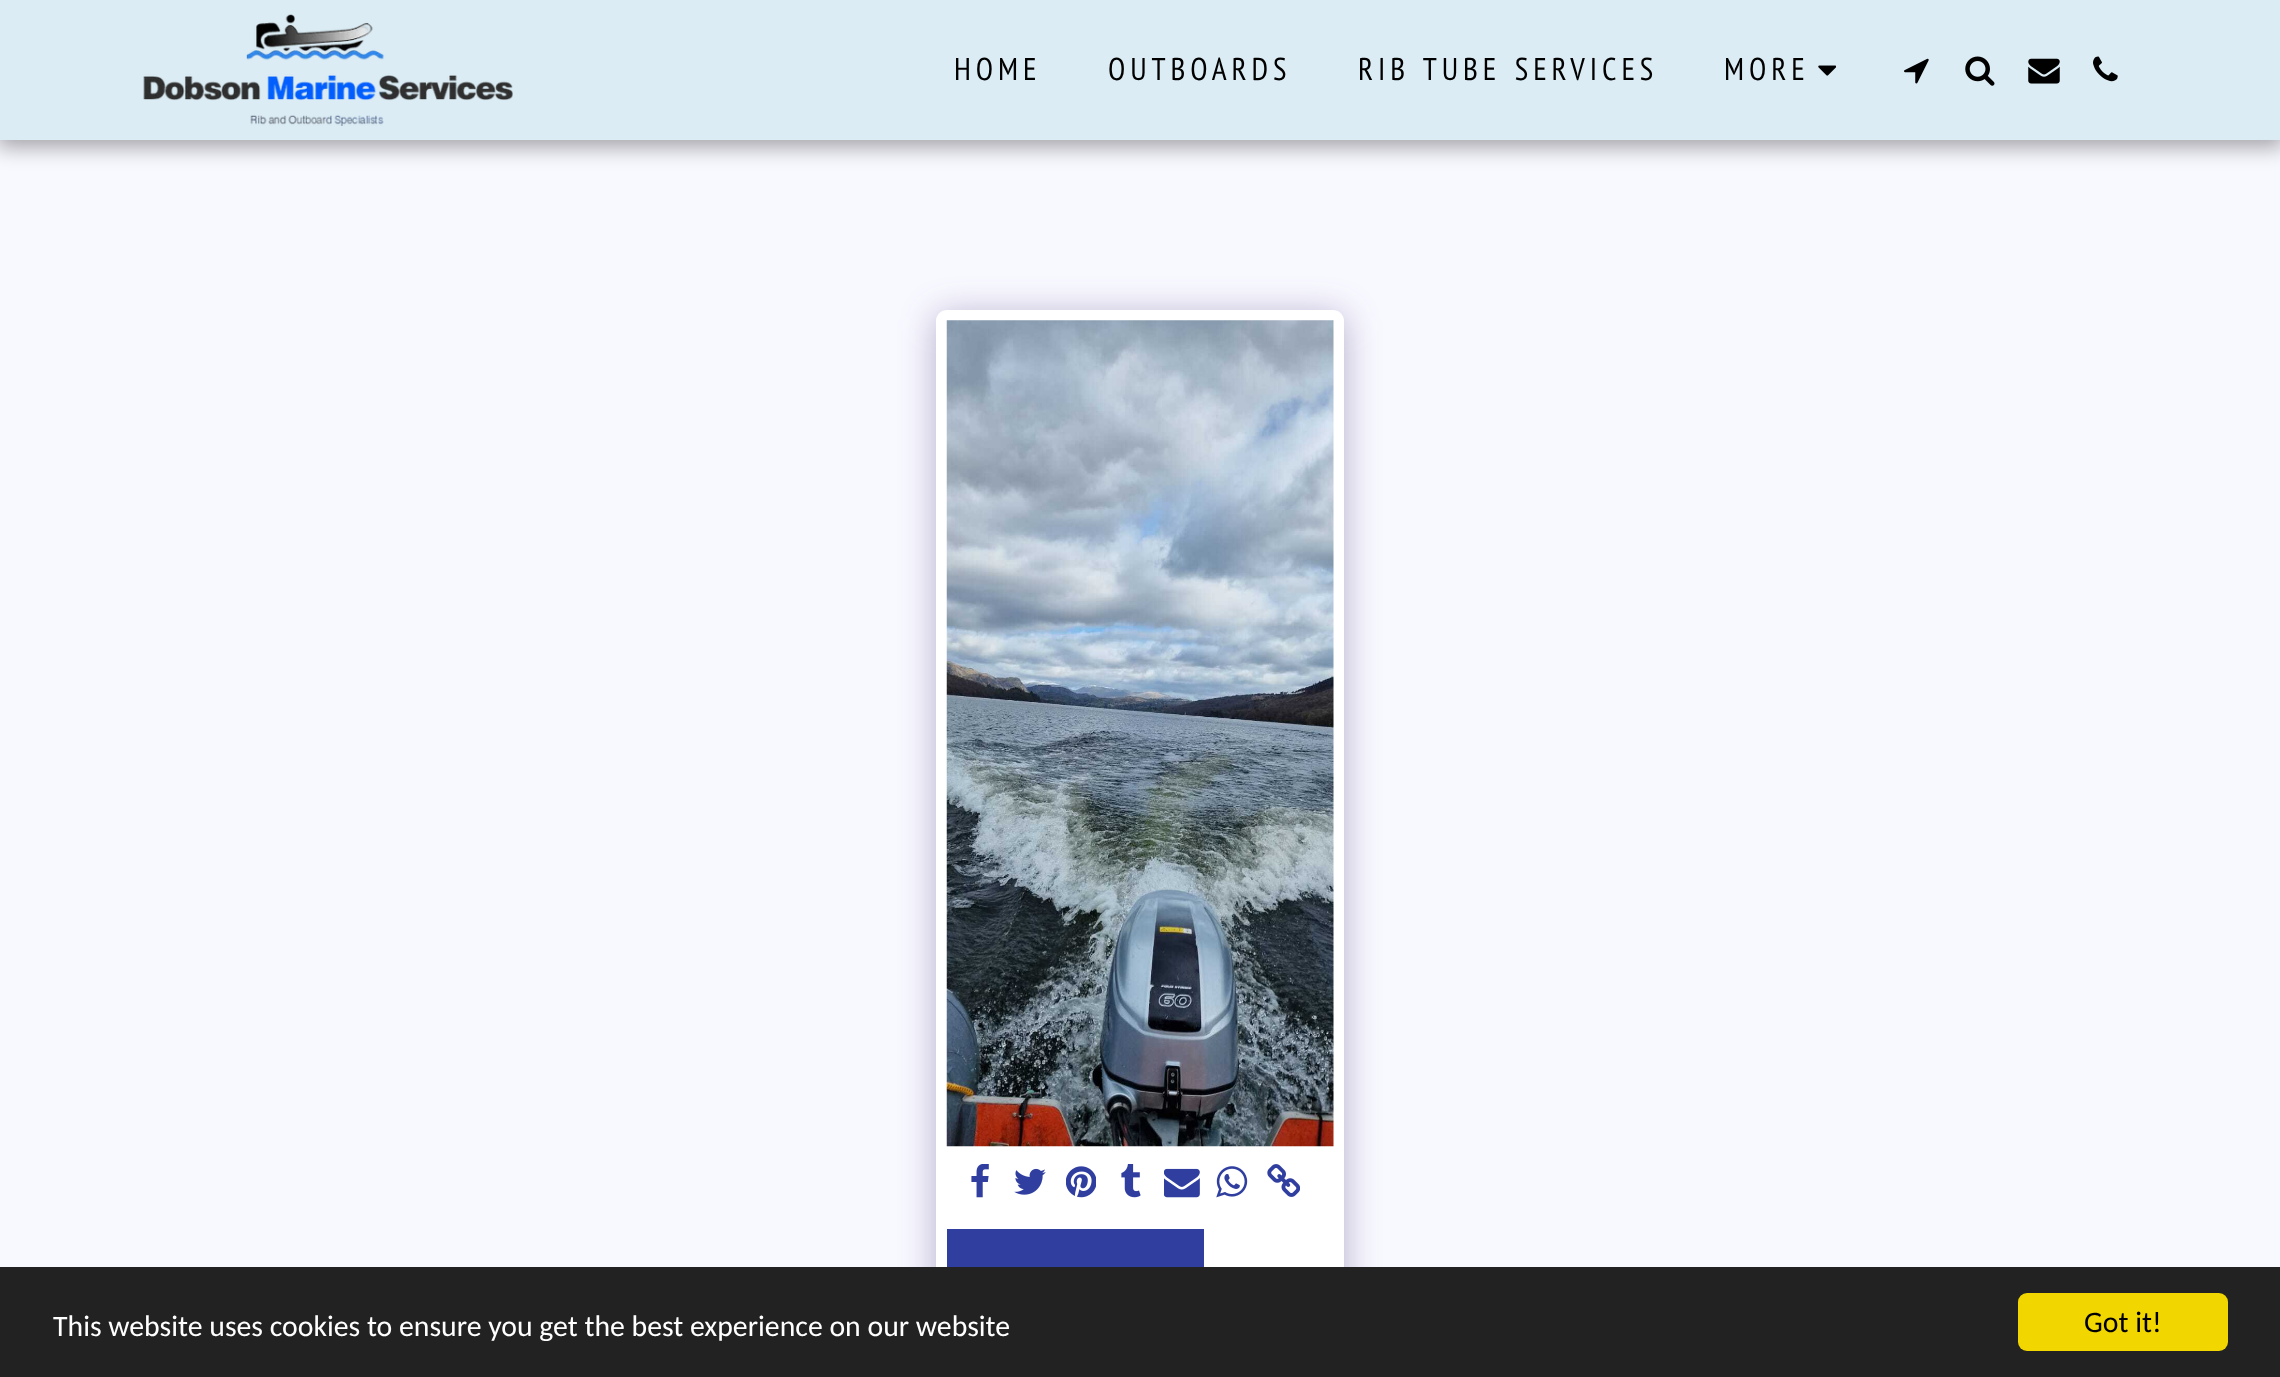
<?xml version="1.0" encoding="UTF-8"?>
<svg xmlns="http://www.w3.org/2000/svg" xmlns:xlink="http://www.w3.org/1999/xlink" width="2280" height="1377">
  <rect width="100%" height="100%" fill="#f8f8ff" />
  <rect x="-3" width="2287" height="147" fill="#000000" fill-opacity="0.35" filter="blur(10.5px)" />
  <rect width="2280" height="140" fill="#dbecf4" />
  <image x="143" y="14" width="370" height="112" xlink:href="image1.png" />
  <image x="1818" y="65" width="18" height="11" xlink:href="image2.png" />
  <image x="1904" y="58" width="25" height="26" xlink:href="image3.png" />
  <image x="1965" y="56" width="30" height="30" xlink:href="image4.png" />
  <image x="2028" y="58" width="32" height="26" xlink:href="image5.png" />
  <image x="2093" y="56" width="25" height="26" xlink:href="image6.png" />
  <rect x="936" y="315" width="408" height="1020" rx="11" fill="#4d3f7a" fill-opacity="0.4" filter="blur(17.5px)" />
  <rect x="936" y="310" width="408" height="1020" rx="11" fill="#ffffff" />
  <image x="946" y="320" width="388" height="827" xlink:href="image7.png" />
  <image x="971" y="1164" width="18" height="34" xlink:href="image8.png" />
  <image x="1014" y="1168" width="32" height="27" xlink:href="image9.png" />
  <image x="1066" y="1166" width="30" height="32" xlink:href="image10.png" />
  <image x="1121" y="1164" width="20" height="34" xlink:href="image11.png" />
  <image x="1164" y="1168" width="36" height="30" xlink:href="image12.png" />
  <image x="1216" y="1166" width="32" height="32" xlink:href="image13.png" />
  <image x="1267" y="1164" width="33" height="33" xlink:href="image14.png" />
  <rect x="947" y="1229" width="257" height="38" fill="#303f9f" />
  <rect y="1267" width="2280" height="110" fill="#222222" />
  <rect x="2018" y="1293" width="210" height="58" rx="9" fill="#f1d600" />
  <text x="954" y="80" style="font-family: PT Sans Narrow; font-size: 31.5px; letter-spacing: 4.9px; fill: #000000">HOME</text>
  <text x="1108" y="80" style="font-family: PT Sans Narrow; font-size: 31.5px; letter-spacing: 4.9px; fill: #000000">OUTBOARDS</text>
  <text x="1358" y="80" word-spacing="2" style="font-family: PT Sans Narrow; font-size: 31.5px; letter-spacing: 4.9px; fill: #000000">RIB TUBE SERVICES</text>
  <text x="1724" y="80" style="font-family: PT Sans Narrow; font-size: 31.5px; letter-spacing: 4.9px; fill: #000000">MORE</text>
  <text x="53" y="1336" style="font-family: Carlito; font-size: 29.75px; fill: #ffffff">This website uses cookies to ensure you get the best experience on our website</text>
  <text x="2084" y="1332" style="font-family: Carlito; font-size: 29.75px; fill: #000000">Got it!</text>
</svg>
